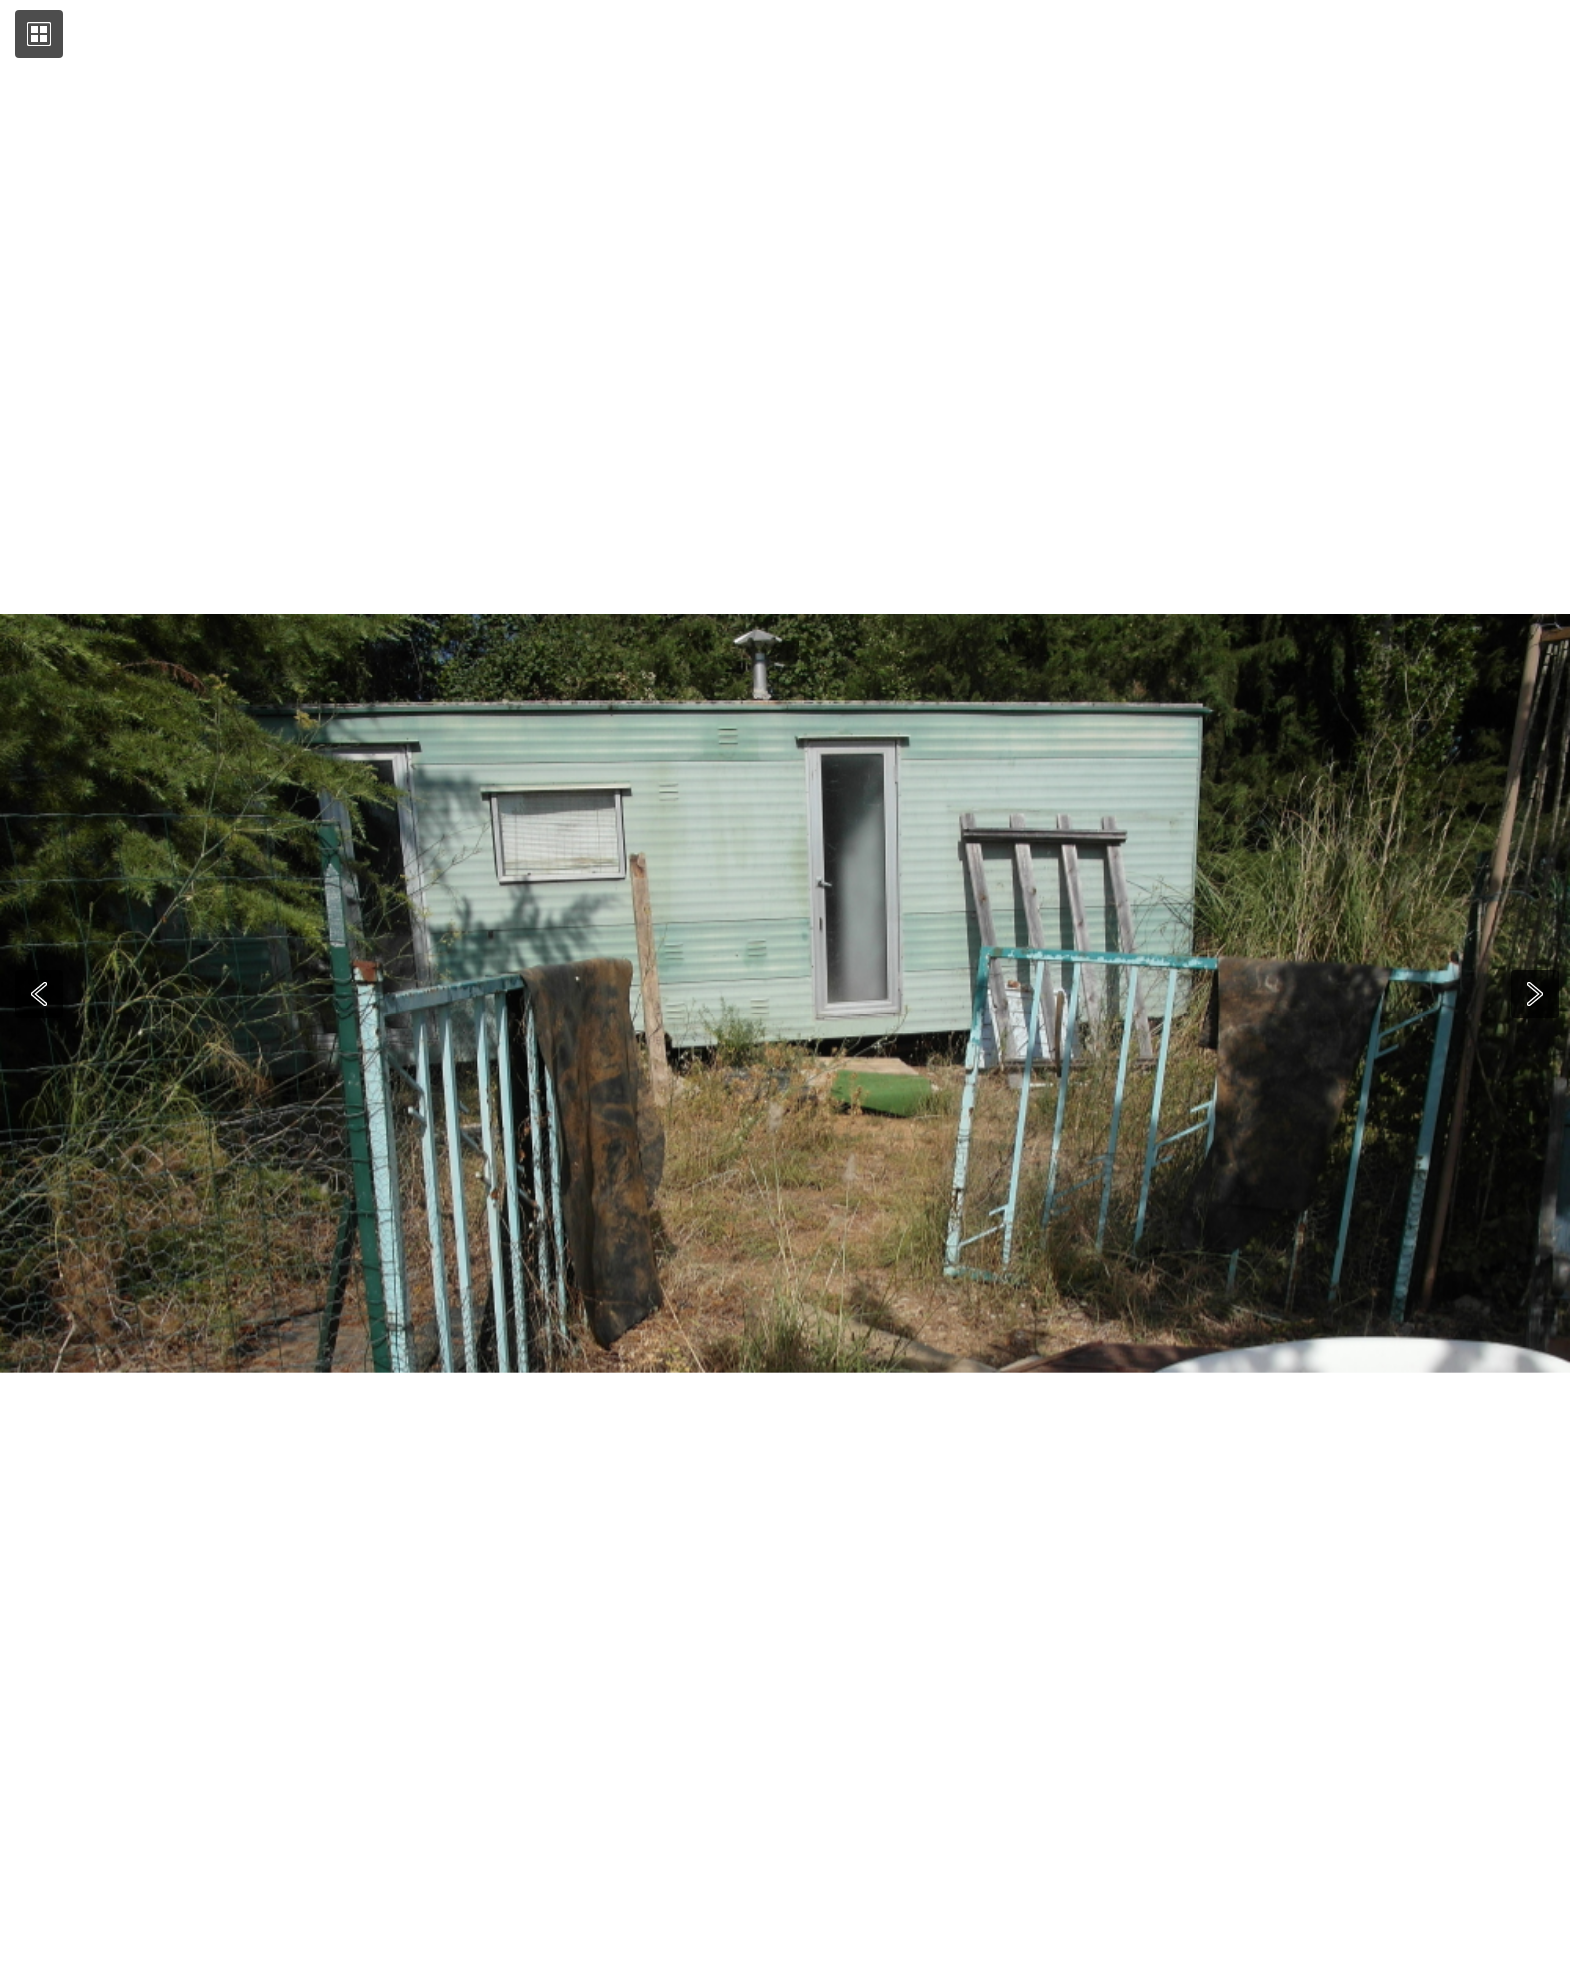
<?xml version="1.0" encoding="UTF-8"?>
<svg xmlns="http://www.w3.org/2000/svg" xmlns:xlink="http://www.w3.org/1999/xlink" width="1570" height="1988">
  <rect width="100%" height="100%" fill="#ffffff" />
  <rect x="15" y="10" width="48" height="48" rx="4" fill="#4d4d4d" />
  <image x="27" y="22" width="24" height="24" xlink:href="image1.png" />
  <image x="0" y="614" width="1570" height="759" xlink:href="image2.png" />
  <rect x="15" y="970" width="48" height="48" rx="4" fill="#000000" fill-opacity="0.7" />
  <image x="31" y="982" width="16" height="24" xlink:href="image3.png" />
  <rect x="1511" y="970" width="48" height="48" rx="4" fill="#000000" fill-opacity="0.7" />
  <image x="1527" y="982" width="16" height="24" xlink:href="image4.png" />
</svg>
